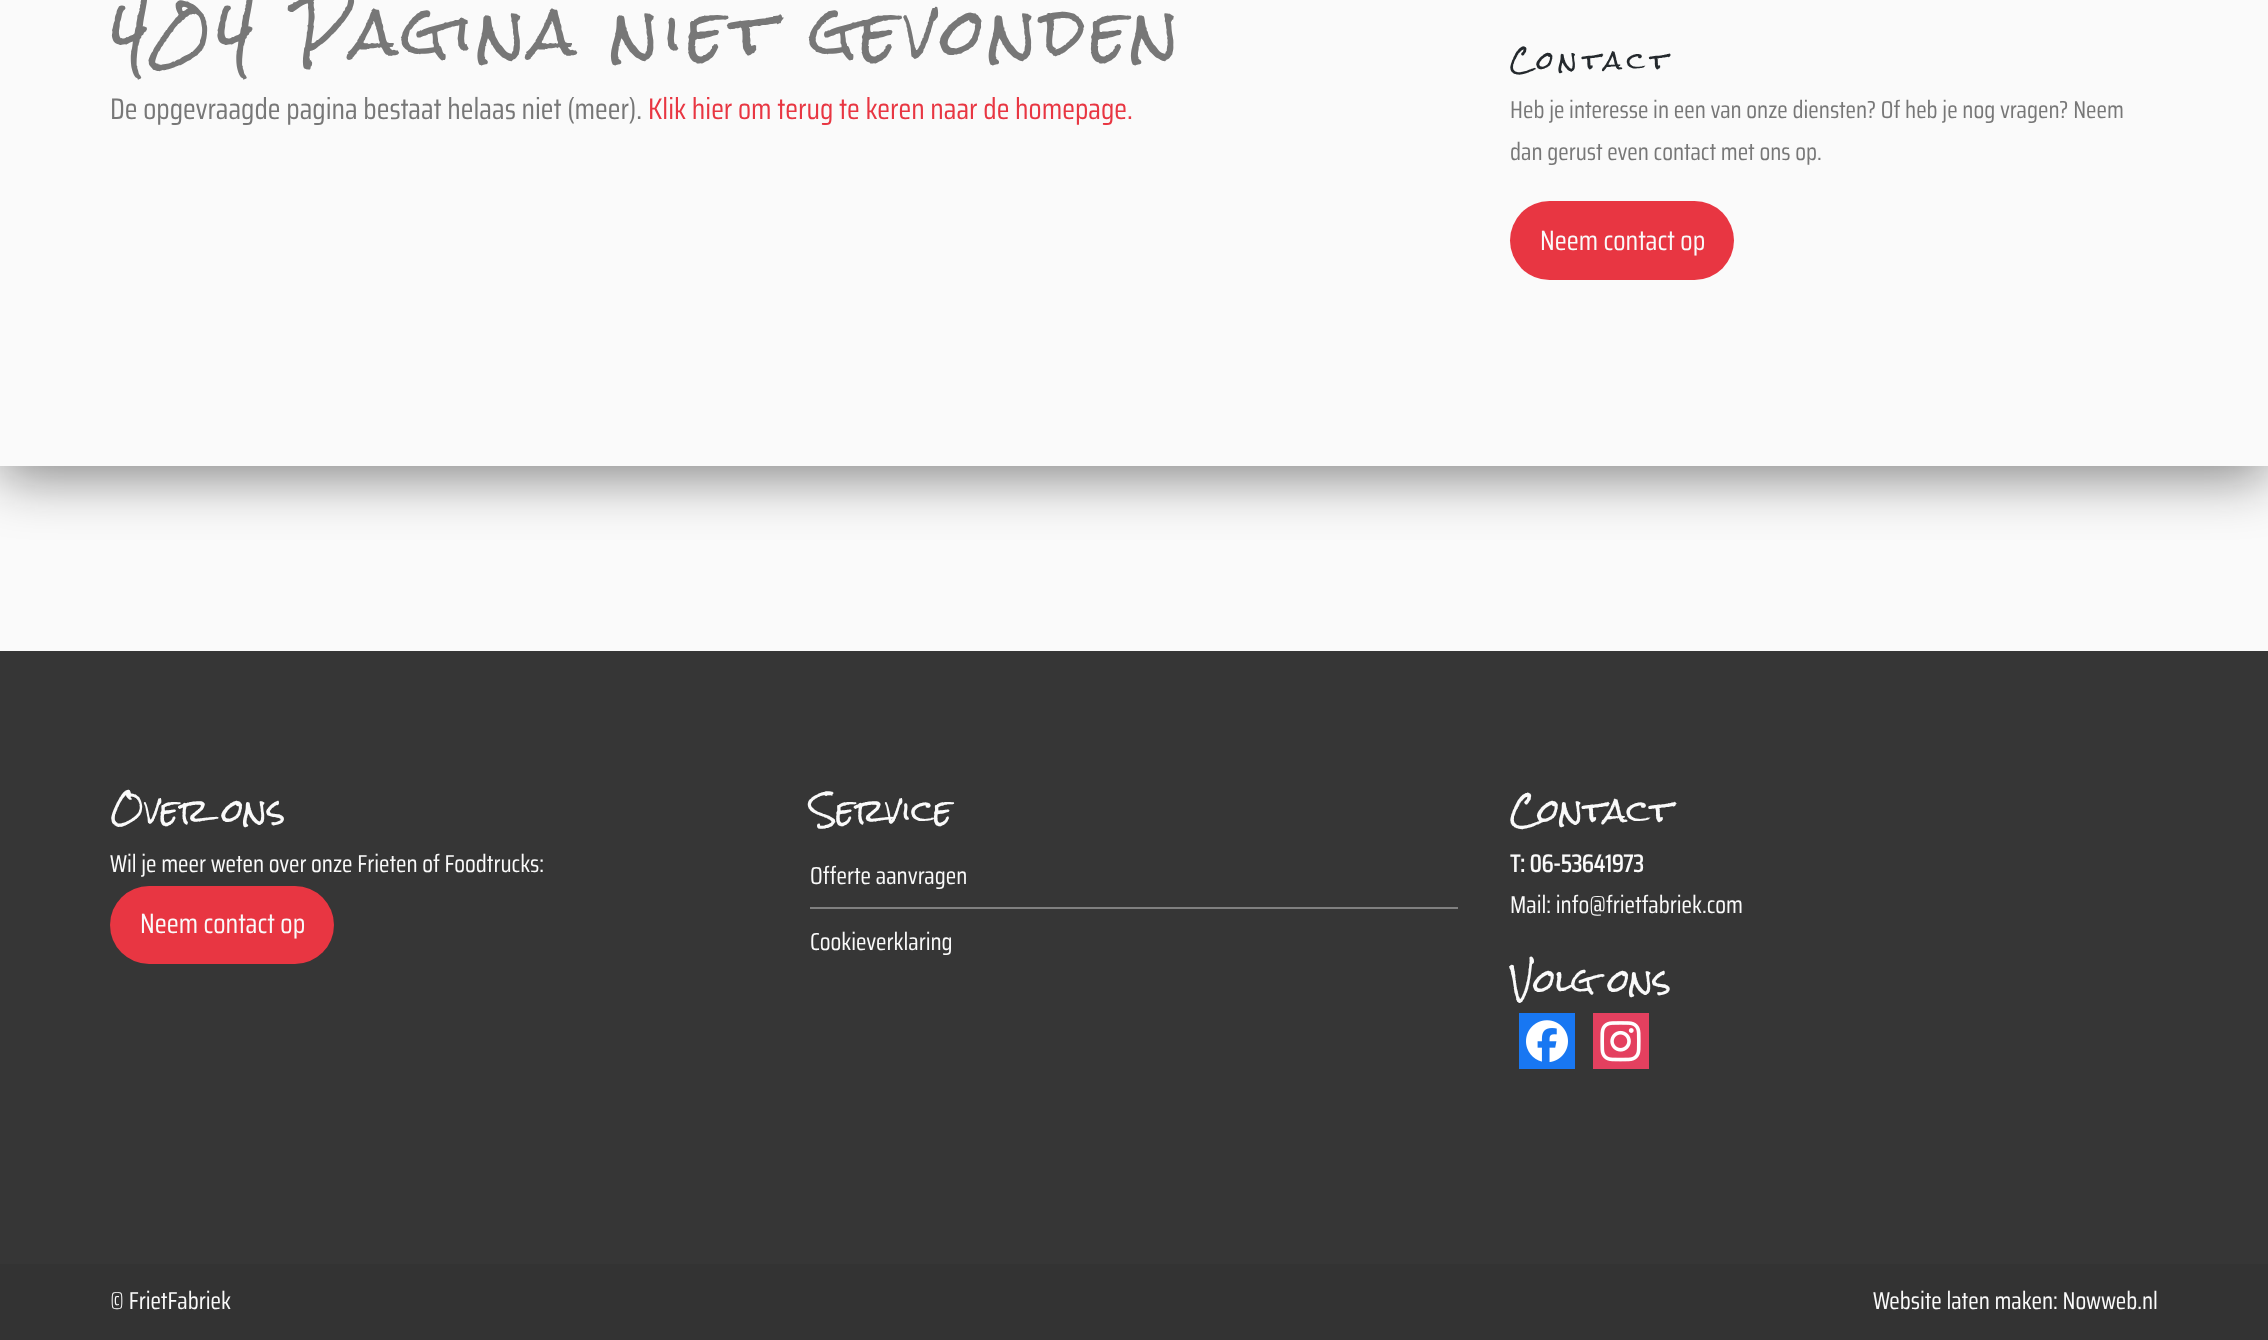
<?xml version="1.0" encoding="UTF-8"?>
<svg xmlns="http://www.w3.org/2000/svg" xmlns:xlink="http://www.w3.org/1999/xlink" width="2268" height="1340">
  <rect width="100%" height="100%" fill="#fafafa" />
  <rect y="-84" width="2268" height="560" fill="#0a0a0a" fill-opacity="0.5" filter="blur(28px)" />
  <rect width="2268" height="466" fill="#fafafa" />
  <rect x="1510" y="201" width="224" height="79" rx="39.5" fill="#e83642" />
  <rect y="651" width="2268" height="613" fill="#363636" />
  <rect x="110" y="886" width="224" height="78" rx="39" fill="#e83642" />
  <rect x="810" y="907" width="648" height="2" fill="#808080" />
  <rect x="1519" y="1013" width="56" height="56" fill="#1877f2" />
  <image x="1526" y="1020" width="42" height="43" xlink:href="image1.png" />
  <rect x="1593" y="1013" width="56" height="56" fill="#e4405f" />
  <image x="1600" y="1021" width="41" height="41" xlink:href="image2.png" />
  <rect y="1264" width="2268" height="76" fill="#333333" />
  <text x="110" y="57" style="font-family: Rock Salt; font-size: 63px; letter-spacing: 5.25px; fill: #777777">404 Pagina niet gevonden</text>
  <text x="110" y="119" style="font-family: Saira Condensed; font-size: 29.75px; fill: #777777">De opgevraagde pagina bestaat helaas niet (meer).</text>
  <text x="648" y="119" style="font-family: Saira Condensed; font-size: 29.75px; fill: #e83642">Klik hier om terug te keren naar de homepage.</text>
  <text x="1510" y="70" style="font-family: Rock Salt; font-size: 24.5px; letter-spacing: 5.25px; fill: #24292d">Contact</text>
  <text x="1510" y="118" style="font-family: Saira Condensed; font-size: 24.5px; fill: #777777">Heb je interesse in een van onze diensten? Of heb je nog vragen? Neem</text>
  <text x="1510" y="160" style="font-family: Saira Condensed; font-size: 24.5px; fill: #777777">dan gerust even contact met ons op.</text>
  <text x="1540" y="250" style="font-family: Saira Condensed; font-size: 28px; fill: #fafafa">Neem contact op</text>
  <text x="110" y="823" style="font-family: Rock Salt; font-size: 31.5px; fill: #fafafa">Over ons</text>
  <text x="110" y="872" style="font-family: Saira Condensed; font-size: 24.5px; fill: #fafafa">Wil je meer weten over onze Frieten of Foodtrucks:</text>
  <text x="140" y="933" style="font-family: Saira Condensed; font-size: 28px; fill: #fafafa">Neem contact op</text>
  <text x="810" y="823" style="font-family: Rock Salt; font-size: 31.5px; fill: #fafafa">Service</text>
  <text x="810" y="884" style="font-family: Saira Condensed; font-size: 24.5px; fill: #fafafa">Offerte aanvragen</text>
  <text x="810" y="950" style="font-family: Saira Condensed; font-size: 24.5px; fill: #fafafa">Cookieverklaring</text>
  <text x="1510" y="823" style="font-family: Rock Salt; font-size: 31.5px; fill: #fafafa">Contact</text>
  <text x="1510" y="872" style="font-family: Saira Condensed; font-size: 24.5px; font-weight: bold; fill: #fafafa">T: 06-53641973</text>
  <text x="1510" y="913" style="font-family: Saira Condensed; font-size: 24.5px; fill: #fafafa">Mail: info@frietfabriek.com</text>
  <text x="1510" y="993" style="font-family: Rock Salt; font-size: 31.5px; fill: #fafafa">Volg ons</text>
  <text x="110" y="1309" style="font-family: Saira Condensed; font-size: 24.5px; fill: #fafafa">© FrietFabriek</text>
  <text x="1873" y="1309" style="font-family: Saira Condensed; font-size: 24.5px; fill: #fafafa">Website laten maken: Nowweb.nl</text>
</svg>
